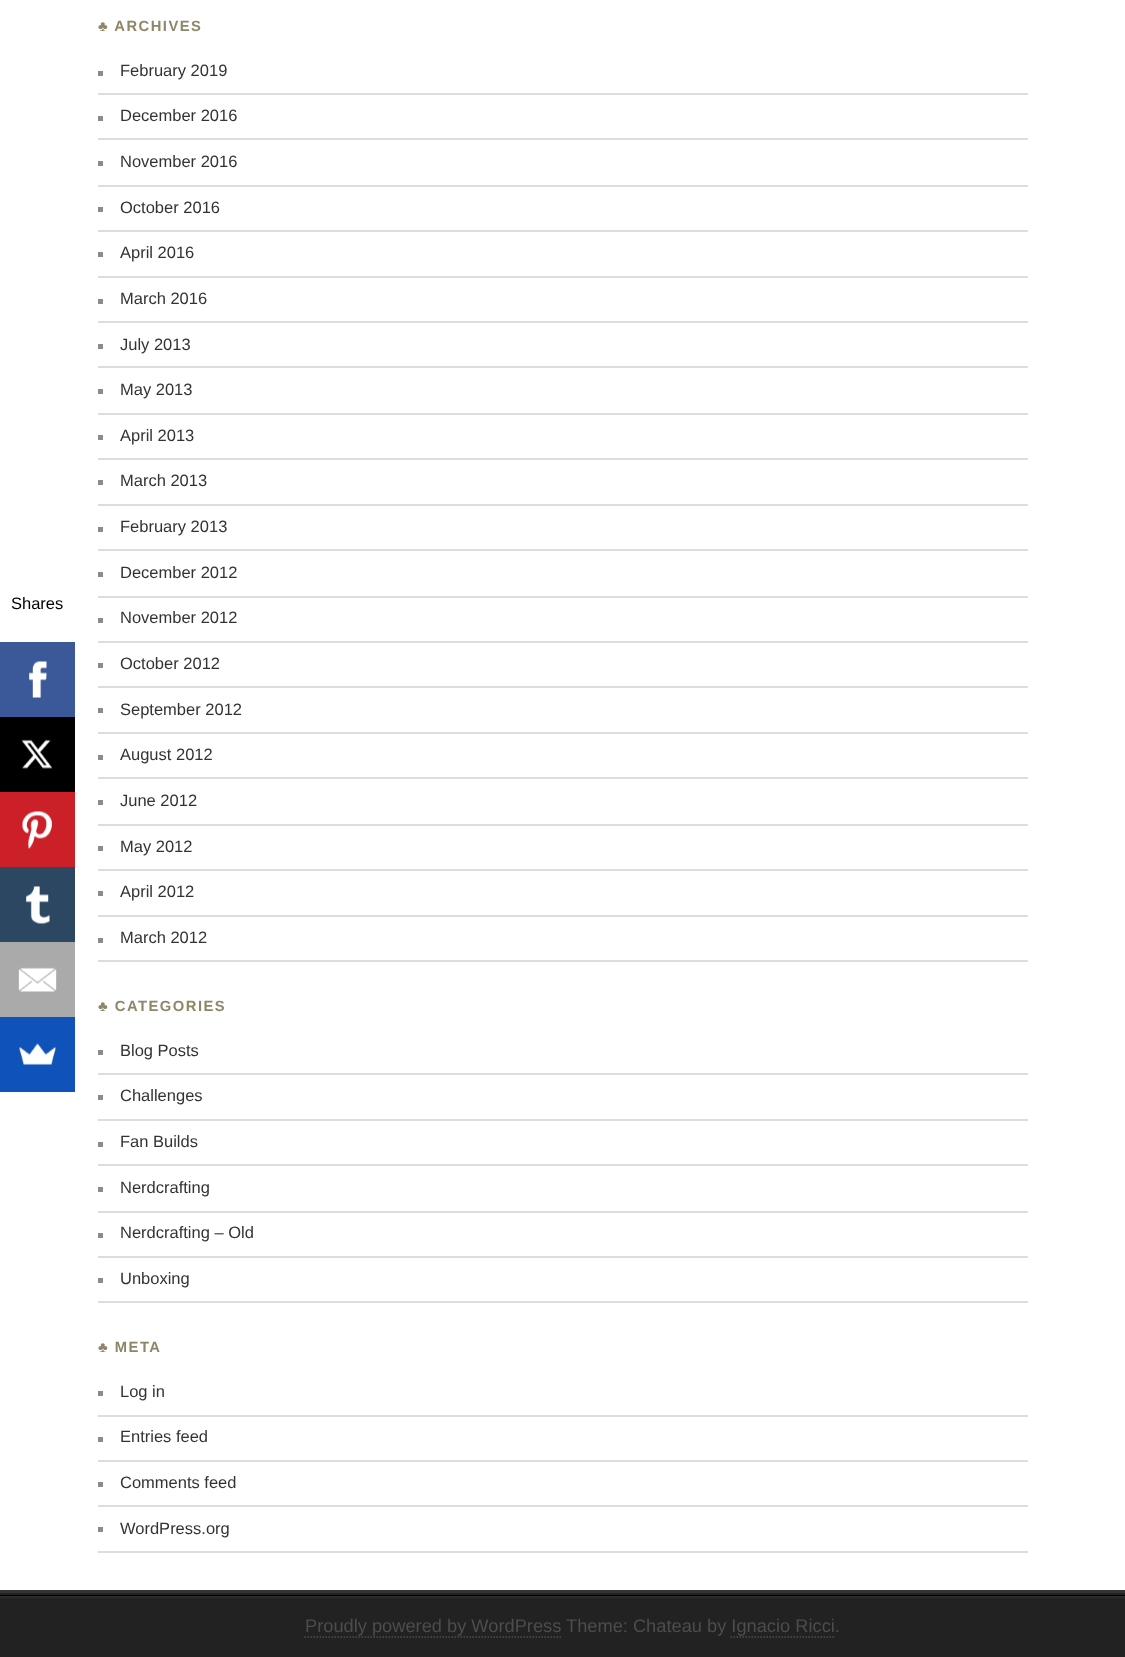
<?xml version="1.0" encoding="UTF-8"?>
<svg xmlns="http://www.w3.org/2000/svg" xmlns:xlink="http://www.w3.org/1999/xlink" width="1125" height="1657">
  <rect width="100%" height="100%" fill="#ffffff" />
  <rect y="642" width="75" height="75" fill="#3b5998" />
  <image x="29" y="661" width="18" height="37" xlink:href="image1.png" />
  <rect y="717" width="75" height="75" fill="#000000" />
  <image x="21" y="739" width="31" height="30" xlink:href="image2.png" />
  <rect y="792" width="75" height="75" fill="#cb2027" />
  <image x="22" y="811" width="30" height="38" xlink:href="image3.png" />
  <rect y="867" width="75" height="75" fill="#2c4762" />
  <image x="26" y="886" width="24" height="38" xlink:href="image4.png" />
  <rect y="942" width="75" height="75" fill="#aaaaaa" />
  <image x="18" y="967" width="39" height="25" xlink:href="image5.png" />
  <rect y="1017" width="75" height="75" fill="#0f52ba" />
  <image x="19" y="1043" width="37" height="22" xlink:href="image6.png" />
  <rect x="98" y="93" width="930" height="2" fill="#dddddd" />
  <rect x="98" y="71" width="5" height="5" fill="#8c8b8b" />
  <rect x="98" y="138" width="930" height="2" fill="#dddddd" />
  <rect x="98" y="116" width="5" height="5" fill="#8c8b8b" />
  <rect x="98" y="185" width="930" height="2" fill="#dddddd" />
  <rect x="98" y="161" width="5" height="5" fill="#8c8b8b" />
  <rect x="98" y="230" width="930" height="2" fill="#dddddd" />
  <rect x="98" y="207" width="5" height="5" fill="#8c8b8b" />
  <rect x="98" y="276" width="930" height="2" fill="#dddddd" />
  <rect x="98" y="252" width="5" height="5" fill="#8c8b8b" />
  <rect x="98" y="321" width="930" height="2" fill="#dddddd" />
  <rect x="98" y="299" width="5" height="5" fill="#8c8b8b" />
  <rect x="98" y="366" width="930" height="2" fill="#dddddd" />
  <rect x="98" y="344" width="5" height="5" fill="#8c8b8b" />
  <rect x="98" y="413" width="930" height="2" fill="#dddddd" />
  <rect x="98" y="389" width="5" height="5" fill="#8c8b8b" />
  <rect x="98" y="458" width="930" height="2" fill="#dddddd" />
  <rect x="98" y="435" width="5" height="5" fill="#8c8b8b" />
  <rect x="98" y="504" width="930" height="2" fill="#dddddd" />
  <rect x="98" y="480" width="5" height="5" fill="#8c8b8b" />
  <rect x="98" y="549" width="930" height="2" fill="#dddddd" />
  <rect x="98" y="527" width="5" height="5" fill="#8c8b8b" />
  <rect x="98" y="596" width="930" height="2" fill="#dddddd" />
  <rect x="98" y="572" width="5" height="5" fill="#8c8b8b" />
  <rect x="98" y="641" width="930" height="2" fill="#dddddd" />
  <rect x="98" y="618" width="5" height="5" fill="#8c8b8b" />
  <rect x="98" y="686" width="930" height="2" fill="#dddddd" />
  <rect x="98" y="663" width="5" height="5" fill="#8c8b8b" />
  <rect x="98" y="732" width="930" height="2" fill="#dddddd" />
  <rect x="98" y="708" width="5" height="5" fill="#8c8b8b" />
  <rect x="98" y="777" width="930" height="2" fill="#dddddd" />
  <rect x="98" y="755" width="5" height="5" fill="#8c8b8b" />
  <rect x="98" y="824" width="930" height="2" fill="#dddddd" />
  <rect x="98" y="800" width="5" height="5" fill="#8c8b8b" />
  <rect x="98" y="869" width="930" height="2" fill="#dddddd" />
  <rect x="98" y="846" width="5" height="5" fill="#8c8b8b" />
  <rect x="98" y="915" width="930" height="2" fill="#dddddd" />
  <rect x="98" y="891" width="5" height="5" fill="#8c8b8b" />
  <rect x="98" y="960" width="930" height="2" fill="#dddddd" />
  <rect x="98" y="938" width="5" height="5" fill="#8c8b8b" />
  <rect x="98" y="1073" width="930" height="2" fill="#dddddd" />
  <rect x="98" y="1050" width="5" height="5" fill="#8c8b8b" />
  <rect x="98" y="1119" width="930" height="2" fill="#dddddd" />
  <rect x="98" y="1095" width="5" height="5" fill="#8c8b8b" />
  <rect x="98" y="1164" width="930" height="2" fill="#dddddd" />
  <rect x="98" y="1142" width="5" height="5" fill="#8c8b8b" />
  <rect x="98" y="1211" width="930" height="2" fill="#dddddd" />
  <rect x="98" y="1187" width="5" height="5" fill="#8c8b8b" />
  <rect x="98" y="1256" width="930" height="2" fill="#dddddd" />
  <rect x="98" y="1233" width="5" height="5" fill="#8c8b8b" />
  <rect x="98" y="1301" width="930" height="2" fill="#dddddd" />
  <rect x="98" y="1278" width="5" height="5" fill="#8c8b8b" />
  <rect x="98" y="1415" width="930" height="2" fill="#dddddd" />
  <rect x="98" y="1391" width="5" height="5" fill="#8c8b8b" />
  <rect x="98" y="1460" width="930" height="2" fill="#dddddd" />
  <rect x="98" y="1437" width="5" height="5" fill="#8c8b8b" />
  <rect x="98" y="1505" width="930" height="2" fill="#dddddd" />
  <rect x="98" y="1482" width="5" height="5" fill="#8c8b8b" />
  <rect x="98" y="1551" width="930" height="2" fill="#dddddd" />
  <rect x="98" y="1527" width="5" height="5" fill="#8c8b8b" />
  <rect y="1595" width="1125" height="1" fill="#000000" />
  <rect y="1590" width="1125" height="3" fill="#333333" />
  <rect y="1593" width="1125" height="2" fill="#222222" />
  <rect y="1598" width="1125" height="59" fill="#222222" />
  <rect y="1596" width="1125" height="2" fill="#2c2c2c" />
  <path d="M 304.5 1637 h 256.5" fill="none" stroke="#4d4d4d" stroke-width="1.5" stroke-dasharray="1.5 1.5" />
  <path d="M 730.5 1637 h 103.5" fill="none" stroke="#4d4d4d" stroke-width="1.5" stroke-dasharray="1.5 1.5" />
  <text x="11" y="609" style="font-family: Liberation Sans; font-size: 16.5px; fill: #000000">Shares</text>
  <text x="98" y="31" style="font-family: Liberation Sans; font-size: 14.75px; font-weight: bold; letter-spacing: 1.5px; fill: #8d8767">♣ ARCHIVES</text>
  <text x="120" y="76" style="font-family: Liberation Sans; font-size: 16.5px; fill: #333333">February 2019</text>
  <text x="120" y="121" style="font-family: Liberation Sans; font-size: 16.5px; fill: #333333">December 2016</text>
  <text x="120" y="167" style="font-family: Liberation Sans; font-size: 16.5px; fill: #333333">November 2016</text>
  <text x="120" y="213" style="font-family: Liberation Sans; font-size: 16.5px; fill: #333333">October 2016</text>
  <text x="120" y="258" style="font-family: Liberation Sans; font-size: 16.5px; fill: #333333">April 2016</text>
  <text x="120" y="304" style="font-family: Liberation Sans; font-size: 16.5px; fill: #333333">March 2016</text>
  <text x="120" y="350" style="font-family: Liberation Sans; font-size: 16.5px; fill: #333333">July 2013</text>
  <text x="120" y="395" style="font-family: Liberation Sans; font-size: 16.5px; fill: #333333">May 2013</text>
  <text x="120" y="441" style="font-family: Liberation Sans; font-size: 16.5px; fill: #333333">April 2013</text>
  <text x="120" y="486" style="font-family: Liberation Sans; font-size: 16.5px; fill: #333333">March 2013</text>
  <text x="120" y="532" style="font-family: Liberation Sans; font-size: 16.5px; fill: #333333">February 2013</text>
  <text x="120" y="578" style="font-family: Liberation Sans; font-size: 16.5px; fill: #333333">December 2012</text>
  <text x="120" y="623" style="font-family: Liberation Sans; font-size: 16.5px; fill: #333333">November 2012</text>
  <text x="120" y="669" style="font-family: Liberation Sans; font-size: 16.5px; fill: #333333">October 2012</text>
  <text x="120" y="715" style="font-family: Liberation Sans; font-size: 16.5px; fill: #333333">September 2012</text>
  <text x="120" y="760" style="font-family: Liberation Sans; font-size: 16.5px; fill: #333333">August 2012</text>
  <text x="120" y="806" style="font-family: Liberation Sans; font-size: 16.5px; fill: #333333">June 2012</text>
  <text x="120" y="852" style="font-family: Liberation Sans; font-size: 16.5px; fill: #333333">May 2012</text>
  <text x="120" y="897" style="font-family: Liberation Sans; font-size: 16.5px; fill: #333333">April 2012</text>
  <text x="120" y="943" style="font-family: Liberation Sans; font-size: 16.5px; fill: #333333">March 2012</text>
  <text x="98" y="1011" style="font-family: Liberation Sans; font-size: 14.75px; font-weight: bold; letter-spacing: 1.5px; fill: #8d8767">♣ CATEGORIES</text>
  <text x="120" y="1056" style="font-family: Liberation Sans; font-size: 16.5px; fill: #333333">Blog Posts</text>
  <text x="120" y="1101" style="font-family: Liberation Sans; font-size: 16.5px; fill: #333333">Challenges</text>
  <text x="120" y="1147" style="font-family: Liberation Sans; font-size: 16.5px; fill: #333333">Fan Builds</text>
  <text x="120" y="1193" style="font-family: Liberation Sans; font-size: 16.5px; fill: #333333">Nerdcrafting</text>
  <text x="120" y="1238" style="font-family: Liberation Sans; font-size: 16.5px; fill: #333333">Nerdcrafting – Old</text>
  <text x="120" y="1284" style="font-family: Liberation Sans; font-size: 16.5px; fill: #333333">Unboxing</text>
  <text x="98" y="1352" style="font-family: Liberation Sans; font-size: 14.75px; font-weight: bold; letter-spacing: 1.5px; fill: #8d8767">♣ META</text>
  <text x="120" y="1397" style="font-family: Liberation Sans; font-size: 16.5px; fill: #333333">Log in</text>
  <text x="120" y="1442" style="font-family: Liberation Sans; font-size: 16.5px; fill: #333333">Entries feed</text>
  <text x="120" y="1488" style="font-family: Liberation Sans; font-size: 16.5px; fill: #333333">Comments feed</text>
  <text x="120" y="1534" style="font-family: Liberation Sans; font-size: 16.5px; fill: #333333">WordPress.org</text>
  <text x="305" y="1632" style="font-family: Liberation Sans; font-size: 18.25px; fill: #4d4d4d">Proudly powered by WordPress</text>
  <text x="566" y="1632" style="font-family: Liberation Sans; font-size: 18.25px; fill: #4d4d4d">Theme: Chateau by Ignacio Ricci.</text>
</svg>
